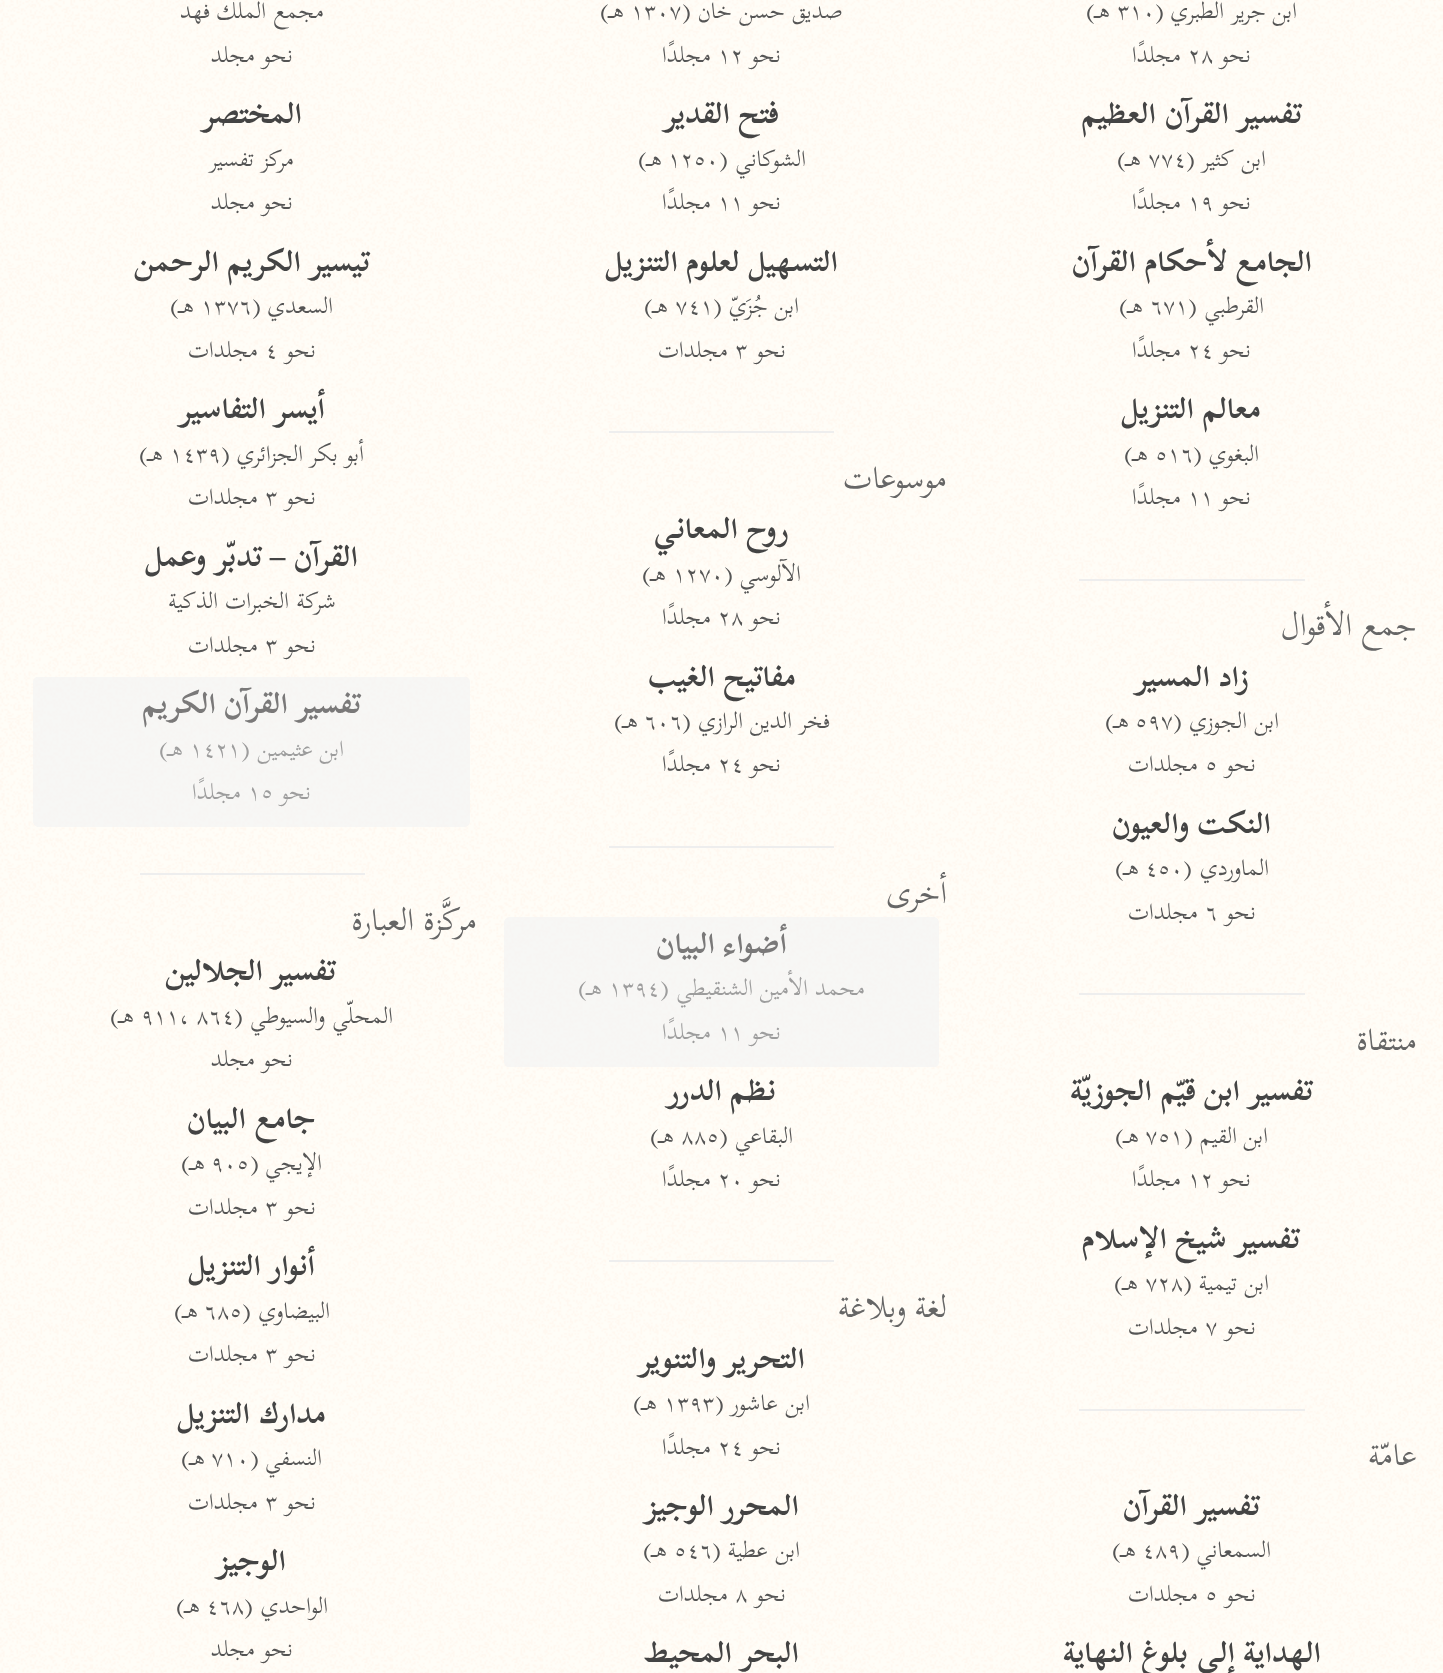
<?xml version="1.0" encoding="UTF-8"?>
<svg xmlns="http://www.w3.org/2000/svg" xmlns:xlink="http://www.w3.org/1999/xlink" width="1443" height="1673">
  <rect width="100%" height="100%" fill="#ffffff" />
  <image x="0" y="0" width="1443" height="1673" xlink:href="image1.png" />
  <rect x="1079" y="579" width="226" height="2" fill="#eeeeee" />
  <rect x="1079" y="993" width="226" height="2" fill="#eeeeee" />
  <rect x="1079" y="1409" width="226" height="2" fill="#eeeeee" />
  <rect x="609" y="431" width="225" height="2" fill="#eeeeee" />
  <rect x="609" y="846" width="225" height="2" fill="#eeeeee" />
  <path d="M 510 917 h 423 c 3.5 0 6 2.5 6 6 v 139 c 0 3 -2 5 -5 5 h -425 c -3 0 -5 -2 -5 -5 v -139 c 0 -3.5 2.5 -6 6 -6 z" fill="#f4f4f4" fill-opacity="0.7" />
  <rect x="609" y="1260" width="225" height="2" fill="#eeeeee" />
  <path d="M 38 677 h 427 c 3 0 5 2 5 5 v 139 c 0 3.5 -2.5 6 -6 6 h -425 c -3.5 0 -6 -2.5 -6 -6 v -139 c 0 -3 2 -5 5 -5 z" fill="#f4f4f4" fill-opacity="0.7" />
  <rect x="140" y="873" width="225" height="2" fill="#eeeeee" />
  <text x="1297" y="18" style="font-family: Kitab; font-size: 25px; direction: rtl; fill: #555555">ابن</text>
  <text x="1266" y="18" style="font-family: Kitab; font-size: 25px; direction: rtl; fill: #555555">جرير</text>
  <text x="1224" y="18" style="font-family: Kitab; font-size: 25px; direction: rtl; fill: #555555">الطبري</text>
  <text x="1164" y="18" style="font-family: Kitab; font-size: 25px; direction: rtl; fill: #555555">(</text>
  <text x="1117" y="18" style="font-family: Kitab; font-size: 25px; fill: #555555">٣١٠</text>
  <text x="1110" y="18" style="font-family: Kitab; font-size: 25px; direction: rtl; fill: #555555">هـ)</text>
  <text x="1251" y="62" style="font-family: Kitab; font-size: 25px; direction: rtl; fill: #555555">نحو</text>
  <text x="1188" y="62" style="font-family: Kitab; font-size: 25px; fill: #555555">٢٨</text>
  <text x="1181" y="62" style="font-family: Kitab; font-size: 25px; direction: rtl; fill: #555555">مجلدًا</text>
  <text x="1302" y="123" style="font-family: Kitab; font-size: 31.5px; font-weight: bold; direction: rtl; fill: #444444">تفسير</text>
  <text x="1229" y="123" style="font-family: Kitab; font-size: 31.5px; font-weight: bold; direction: rtl; fill: #444444">القرآن</text>
  <text x="1156" y="123" style="font-family: Kitab; font-size: 31.5px; font-weight: bold; direction: rtl; fill: #444444">العظيم</text>
  <text x="1266" y="166" style="font-family: Kitab; font-size: 25px; direction: rtl; fill: #555555">ابن</text>
  <text x="1234" y="166" style="font-family: Kitab; font-size: 25px; direction: rtl; fill: #555555">كثير</text>
  <text x="1195" y="166" style="font-family: Kitab; font-size: 25px; direction: rtl; fill: #555555">(</text>
  <text x="1148" y="166" style="font-family: Kitab; font-size: 25px; fill: #555555">٧٧٤</text>
  <text x="1141" y="166" style="font-family: Kitab; font-size: 25px; direction: rtl; fill: #555555">هـ)</text>
  <text x="1251" y="209" style="font-family: Kitab; font-size: 25px; direction: rtl; fill: #555555">نحو</text>
  <text x="1188" y="209" style="font-family: Kitab; font-size: 25px; fill: #555555">١٩</text>
  <text x="1181" y="209" style="font-family: Kitab; font-size: 25px; direction: rtl; fill: #555555">مجلدًا</text>
  <text x="1312" y="271" style="font-family: Kitab; font-size: 31.5px; font-weight: bold; direction: rtl; fill: #444444">الجامع</text>
  <text x="1228" y="271" style="font-family: Kitab; font-size: 31.5px; font-weight: bold; direction: rtl; fill: #444444">لأحكام</text>
  <text x="1136" y="271" style="font-family: Kitab; font-size: 31.5px; font-weight: bold; direction: rtl; fill: #444444">القرآن</text>
  <text x="1264" y="313" style="font-family: Kitab; font-size: 25px; direction: rtl; fill: #555555">القرطبي</text>
  <text x="1197" y="313" style="font-family: Kitab; font-size: 25px; direction: rtl; fill: #555555">(</text>
  <text x="1150" y="313" style="font-family: Kitab; font-size: 25px; fill: #555555">٦٧١</text>
  <text x="1143" y="313" style="font-family: Kitab; font-size: 25px; direction: rtl; fill: #555555">هـ)</text>
  <text x="1251" y="357" style="font-family: Kitab; font-size: 25px; direction: rtl; fill: #555555">نحو</text>
  <text x="1188" y="357" style="font-family: Kitab; font-size: 25px; fill: #555555">٢٤</text>
  <text x="1181" y="357" style="font-family: Kitab; font-size: 25px; direction: rtl; fill: #555555">مجلدًا</text>
  <text x="1261" y="418" style="font-family: Kitab; font-size: 31.5px; font-weight: bold; direction: rtl; fill: #444444">معالم</text>
  <text x="1194" y="418" style="font-family: Kitab; font-size: 31.5px; font-weight: bold; direction: rtl; fill: #444444">التنزيل</text>
  <text x="1259" y="461" style="font-family: Kitab; font-size: 25px; direction: rtl; fill: #555555">البغوي</text>
  <text x="1202" y="461" style="font-family: Kitab; font-size: 25px; direction: rtl; fill: #555555">(</text>
  <text x="1155" y="461" style="font-family: Kitab; font-size: 25px; fill: #555555">٥١٦</text>
  <text x="1148" y="461" style="font-family: Kitab; font-size: 25px; direction: rtl; fill: #555555">هـ)</text>
  <text x="1251" y="504" style="font-family: Kitab; font-size: 25px; direction: rtl; fill: #555555">نحو</text>
  <text x="1188" y="504" style="font-family: Kitab; font-size: 25px; fill: #555555">١١</text>
  <text x="1181" y="504" style="font-family: Kitab; font-size: 25px; direction: rtl; fill: #555555">مجلدًا</text>
  <text x="1417" y="635" style="font-family: Kitab; font-size: 34.5px; direction: rtl; fill: #666666">جمع</text>
  <text x="1352" y="635" style="font-family: Kitab; font-size: 34.5px; direction: rtl; fill: #666666">الأقوال</text>
  <text x="1249" y="686" style="font-family: Kitab; font-size: 31.5px; font-weight: bold; direction: rtl; fill: #444444">زاد</text>
  <text x="1210" y="686" style="font-family: Kitab; font-size: 31.5px; font-weight: bold; direction: rtl; fill: #444444">المسير</text>
  <text x="1279" y="728" style="font-family: Kitab; font-size: 25px; direction: rtl; fill: #555555">ابن</text>
  <text x="1247" y="728" style="font-family: Kitab; font-size: 25px; direction: rtl; fill: #555555">الجوزي</text>
  <text x="1182" y="728" style="font-family: Kitab; font-size: 25px; direction: rtl; fill: #555555">(</text>
  <text x="1135" y="728" style="font-family: Kitab; font-size: 25px; fill: #555555">٥٩٧</text>
  <text x="1129" y="728" style="font-family: Kitab; font-size: 25px; direction: rtl; fill: #555555">هـ)</text>
  <text x="1256" y="771" style="font-family: Kitab; font-size: 25px; direction: rtl; fill: #555555">نحو</text>
  <text x="1205" y="771" style="font-family: Kitab; font-size: 25px; fill: #555555">٥</text>
  <text x="1198" y="771" style="font-family: Kitab; font-size: 25px; direction: rtl; fill: #555555">مجلدات</text>
  <text x="1271" y="833" style="font-family: Kitab; font-size: 31.5px; font-weight: bold; direction: rtl; fill: #444444">النكت</text>
  <text x="1189" y="833" style="font-family: Kitab; font-size: 31.5px; font-weight: bold; direction: rtl; fill: #444444">والعيون</text>
  <text x="1269" y="875" style="font-family: Kitab; font-size: 25px; direction: rtl; fill: #555555">الماوردي</text>
  <text x="1192" y="875" style="font-family: Kitab; font-size: 25px; direction: rtl; fill: #555555">(</text>
  <text x="1145" y="875" style="font-family: Kitab; font-size: 25px; fill: #555555">٤٥٠</text>
  <text x="1139" y="875" style="font-family: Kitab; font-size: 25px; direction: rtl; fill: #555555">هـ)</text>
  <text x="1256" y="919" style="font-family: Kitab; font-size: 25px; direction: rtl; fill: #555555">نحو</text>
  <text x="1205" y="919" style="font-family: Kitab; font-size: 25px; fill: #555555">٦</text>
  <text x="1198" y="919" style="font-family: Kitab; font-size: 25px; direction: rtl; fill: #555555">مجلدات</text>
  <text x="1417" y="1050" style="font-family: Kitab; font-size: 34.5px; direction: rtl; fill: #666666">منتقاة</text>
  <text x="1313" y="1100" style="font-family: Kitab; font-size: 31.5px; font-weight: bold; direction: rtl; fill: #444444">تفسير</text>
  <text x="1240" y="1100" style="font-family: Kitab; font-size: 31.5px; font-weight: bold; direction: rtl; fill: #444444">ابن</text>
  <text x="1196" y="1100" style="font-family: Kitab; font-size: 31.5px; font-weight: bold; direction: rtl; fill: #444444">قيّم</text>
  <text x="1152" y="1100" style="font-family: Kitab; font-size: 31.5px; font-weight: bold; direction: rtl; fill: #444444">الجوزيّة</text>
  <text x="1268" y="1143" style="font-family: Kitab; font-size: 25px; direction: rtl; fill: #555555">ابن</text>
  <text x="1237" y="1143" style="font-family: Kitab; font-size: 25px; direction: rtl; fill: #555555">القيم</text>
  <text x="1193" y="1143" style="font-family: Kitab; font-size: 25px; direction: rtl; fill: #555555">(</text>
  <text x="1145" y="1143" style="font-family: Kitab; font-size: 25px; fill: #555555">٧٥١</text>
  <text x="1139" y="1143" style="font-family: Kitab; font-size: 25px; direction: rtl; fill: #555555">هـ)</text>
  <text x="1251" y="1186" style="font-family: Kitab; font-size: 25px; direction: rtl; fill: #555555">نحو</text>
  <text x="1188" y="1186" style="font-family: Kitab; font-size: 25px; fill: #555555">١٢</text>
  <text x="1181" y="1186" style="font-family: Kitab; font-size: 25px; direction: rtl; fill: #555555">مجلدًا</text>
  <text x="1300" y="1248" style="font-family: Kitab; font-size: 31.5px; font-weight: bold; direction: rtl; fill: #444444">تفسير</text>
  <text x="1227" y="1248" style="font-family: Kitab; font-size: 31.5px; font-weight: bold; direction: rtl; fill: #444444">شيخ</text>
  <text x="1167" y="1248" style="font-family: Kitab; font-size: 31.5px; font-weight: bold; direction: rtl; fill: #444444">الإسلام</text>
  <text x="1269" y="1290" style="font-family: Kitab; font-size: 25px; direction: rtl; fill: #555555">ابن</text>
  <text x="1237" y="1290" style="font-family: Kitab; font-size: 25px; direction: rtl; fill: #555555">تيمية</text>
  <text x="1192" y="1290" style="font-family: Kitab; font-size: 25px; direction: rtl; fill: #555555">(</text>
  <text x="1145" y="1290" style="font-family: Kitab; font-size: 25px; fill: #555555">٧٢٨</text>
  <text x="1138" y="1290" style="font-family: Kitab; font-size: 25px; direction: rtl; fill: #555555">هـ)</text>
  <text x="1256" y="1334" style="font-family: Kitab; font-size: 25px; direction: rtl; fill: #555555">نحو</text>
  <text x="1205" y="1334" style="font-family: Kitab; font-size: 25px; fill: #555555">٧</text>
  <text x="1198" y="1334" style="font-family: Kitab; font-size: 25px; direction: rtl; fill: #555555">مجلدات</text>
  <text x="1417" y="1465" style="font-family: Kitab; font-size: 34.5px; direction: rtl; fill: #666666">عامّة</text>
  <text x="1260" y="1515" style="font-family: Kitab; font-size: 31.5px; font-weight: bold; direction: rtl; fill: #444444">تفسير</text>
  <text x="1187" y="1515" style="font-family: Kitab; font-size: 31.5px; font-weight: bold; direction: rtl; fill: #444444">القرآن</text>
  <text x="1271" y="1557" style="font-family: Kitab; font-size: 25px; direction: rtl; fill: #555555">السمعاني</text>
  <text x="1190" y="1557" style="font-family: Kitab; font-size: 25px; direction: rtl; fill: #555555">(</text>
  <text x="1142" y="1557" style="font-family: Kitab; font-size: 25px; fill: #555555">٤٨٩</text>
  <text x="1136" y="1557" style="font-family: Kitab; font-size: 25px; direction: rtl; fill: #555555">هـ)</text>
  <text x="1256" y="1601" style="font-family: Kitab; font-size: 25px; direction: rtl; fill: #555555">نحو</text>
  <text x="1205" y="1601" style="font-family: Kitab; font-size: 25px; fill: #555555">٥</text>
  <text x="1198" y="1601" style="font-family: Kitab; font-size: 25px; direction: rtl; fill: #555555">مجلدات</text>
  <text x="1321" y="1662" style="font-family: Kitab; font-size: 31.5px; font-weight: bold; direction: rtl; fill: #444444">الهداية</text>
  <text x="1235" y="1662" style="font-family: Kitab; font-size: 31.5px; font-weight: bold; direction: rtl; fill: #444444">إلى</text>
  <text x="1188" y="1662" style="font-family: Kitab; font-size: 31.5px; font-weight: bold; direction: rtl; fill: #444444">بلوغ</text>
  <text x="1133" y="1662" style="font-family: Kitab; font-size: 31.5px; font-weight: bold; direction: rtl; fill: #444444">النهاية</text>
  <text x="843" y="18" style="font-family: Kitab; font-size: 25px; direction: rtl; fill: #555555">صديق</text>
  <text x="785" y="18" style="font-family: Kitab; font-size: 25px; direction: rtl; fill: #555555">حسن</text>
  <text x="732" y="18" style="font-family: Kitab; font-size: 25px; direction: rtl; fill: #555555">خان</text>
  <text x="691" y="18" style="font-family: Kitab; font-size: 25px; direction: rtl; fill: #555555">(</text>
  <text x="631" y="18" style="font-family: Kitab; font-size: 25px; fill: #555555">١٣٠٧</text>
  <text x="624" y="18" style="font-family: Kitab; font-size: 25px; direction: rtl; fill: #555555">هـ)</text>
  <text x="781" y="62" style="font-family: Kitab; font-size: 25px; direction: rtl; fill: #555555">نحو</text>
  <text x="718" y="62" style="font-family: Kitab; font-size: 25px; fill: #555555">١٢</text>
  <text x="711" y="62" style="font-family: Kitab; font-size: 25px; direction: rtl; fill: #555555">مجلدًا</text>
  <text x="779" y="123" style="font-family: Kitab; font-size: 31.5px; font-weight: bold; direction: rtl; fill: #444444">فتح</text>
  <text x="730" y="123" style="font-family: Kitab; font-size: 31.5px; font-weight: bold; direction: rtl; fill: #444444">القدير</text>
  <text x="806" y="166" style="font-family: Kitab; font-size: 25px; direction: rtl; fill: #555555">الشوكاني</text>
  <text x="728" y="166" style="font-family: Kitab; font-size: 25px; direction: rtl; fill: #555555">(</text>
  <text x="668" y="166" style="font-family: Kitab; font-size: 25px; fill: #555555">١٢٥٠</text>
  <text x="662" y="166" style="font-family: Kitab; font-size: 25px; direction: rtl; fill: #555555">هـ)</text>
  <text x="781" y="209" style="font-family: Kitab; font-size: 25px; direction: rtl; fill: #555555">نحو</text>
  <text x="718" y="209" style="font-family: Kitab; font-size: 25px; fill: #555555">١١</text>
  <text x="711" y="209" style="font-family: Kitab; font-size: 25px; direction: rtl; fill: #555555">مجلدًا</text>
  <text x="838" y="271" style="font-family: Kitab; font-size: 31.5px; font-weight: bold; direction: rtl; fill: #444444">التسهيل</text>
  <text x="740" y="271" style="font-family: Kitab; font-size: 31.5px; font-weight: bold; direction: rtl; fill: #444444">لعلوم</text>
  <text x="678" y="271" style="font-family: Kitab; font-size: 31.5px; font-weight: bold; direction: rtl; fill: #444444">التنزيل</text>
  <text x="799" y="313" style="font-family: Kitab; font-size: 25px; direction: rtl; fill: #555555">ابن</text>
  <text x="768" y="313" style="font-family: Kitab; font-size: 25px; direction: rtl; fill: #555555">جُزَيّ</text>
  <text x="722" y="313" style="font-family: Kitab; font-size: 25px; direction: rtl; fill: #555555">(</text>
  <text x="675" y="313" style="font-family: Kitab; font-size: 25px; fill: #555555">٧٤١</text>
  <text x="668" y="313" style="font-family: Kitab; font-size: 25px; direction: rtl; fill: #555555">هـ)</text>
  <text x="786" y="357" style="font-family: Kitab; font-size: 25px; direction: rtl; fill: #555555">نحو</text>
  <text x="735" y="357" style="font-family: Kitab; font-size: 25px; fill: #555555">٣</text>
  <text x="728" y="357" style="font-family: Kitab; font-size: 25px; direction: rtl; fill: #555555">مجلدات</text>
  <text x="947" y="488" style="font-family: Kitab; font-size: 34.5px; direction: rtl; fill: #666666">موسوعات</text>
  <text x="789" y="538" style="font-family: Kitab; font-size: 31.5px; font-weight: bold; direction: rtl; fill: #444444">روح</text>
  <text x="738" y="538" style="font-family: Kitab; font-size: 31.5px; font-weight: bold; direction: rtl; fill: #444444">المعاني</text>
  <text x="801" y="581" style="font-family: Kitab; font-size: 25px; direction: rtl; fill: #555555">الآلوسي</text>
  <text x="733" y="581" style="font-family: Kitab; font-size: 25px; direction: rtl; fill: #555555">(</text>
  <text x="673" y="581" style="font-family: Kitab; font-size: 25px; fill: #555555">١٢٧٠</text>
  <text x="666" y="581" style="font-family: Kitab; font-size: 25px; direction: rtl; fill: #555555">هـ)</text>
  <text x="781" y="624" style="font-family: Kitab; font-size: 25px; direction: rtl; fill: #555555">نحو</text>
  <text x="718" y="624" style="font-family: Kitab; font-size: 25px; fill: #555555">٢٨</text>
  <text x="711" y="624" style="font-family: Kitab; font-size: 25px; direction: rtl; fill: #555555">مجلدًا</text>
  <text x="796" y="686" style="font-family: Kitab; font-size: 31.5px; font-weight: bold; direction: rtl; fill: #444444">مفاتيح</text>
  <text x="715" y="686" style="font-family: Kitab; font-size: 31.5px; font-weight: bold; direction: rtl; fill: #444444">الغيب</text>
  <text x="830" y="728" style="font-family: Kitab; font-size: 25px; direction: rtl; fill: #555555">فخر</text>
  <text x="792" y="728" style="font-family: Kitab; font-size: 25px; direction: rtl; fill: #555555">الدين</text>
  <text x="743" y="728" style="font-family: Kitab; font-size: 25px; direction: rtl; fill: #555555">الرازي</text>
  <text x="691" y="728" style="font-family: Kitab; font-size: 25px; direction: rtl; fill: #555555">(</text>
  <text x="644" y="728" style="font-family: Kitab; font-size: 25px; fill: #555555">٦٠٦</text>
  <text x="638" y="728" style="font-family: Kitab; font-size: 25px; direction: rtl; fill: #555555">هـ)</text>
  <text x="781" y="771" style="font-family: Kitab; font-size: 25px; direction: rtl; fill: #555555">نحو</text>
  <text x="718" y="771" style="font-family: Kitab; font-size: 25px; fill: #555555">٢٤</text>
  <text x="711" y="771" style="font-family: Kitab; font-size: 25px; direction: rtl; fill: #555555">مجلدًا</text>
  <text x="947" y="903" style="font-family: Kitab; font-size: 34.5px; direction: rtl; fill: #666666">أخرى</text>
  <text x="787" y="953" style="font-family: Kitab; font-size: 31.5px; font-weight: bold; direction: rtl; fill: #7a7979">أضواء</text>
  <text x="715" y="953" style="font-family: Kitab; font-size: 31.5px; font-weight: bold; direction: rtl; fill: #7a7979">البيان</text>
  <text x="865" y="995" style="font-family: Kitab; font-size: 25px; direction: rtl; fill: #9d9d9d">محمد</text>
  <text x="808" y="995" style="font-family: Kitab; font-size: 25px; direction: rtl; fill: #9d9d9d">الأمين</text>
  <text x="753" y="995" style="font-family: Kitab; font-size: 25px; direction: rtl; fill: #9d9d9d">الشنقيطي</text>
  <text x="669" y="995" style="font-family: Kitab; font-size: 25px; direction: rtl; fill: #9d9d9d">(</text>
  <text x="609" y="995" style="font-family: Kitab; font-size: 25px; fill: #9d9d9d">١٣٩٤</text>
  <text x="602" y="995" style="font-family: Kitab; font-size: 25px; direction: rtl; fill: #9d9d9d">هـ)</text>
  <text x="781" y="1039" style="font-family: Kitab; font-size: 25px; direction: rtl; fill: #9d9d9d">نحو</text>
  <text x="718" y="1039" style="font-family: Kitab; font-size: 25px; fill: #9d9d9d">١١</text>
  <text x="711" y="1039" style="font-family: Kitab; font-size: 25px; direction: rtl; fill: #9d9d9d">مجلدًا</text>
  <text x="776" y="1100" style="font-family: Kitab; font-size: 31.5px; font-weight: bold; direction: rtl; fill: #444444">نظم</text>
  <text x="722" y="1100" style="font-family: Kitab; font-size: 31.5px; font-weight: bold; direction: rtl; fill: #444444">الدرر</text>
  <text x="793" y="1143" style="font-family: Kitab; font-size: 25px; direction: rtl; fill: #555555">البقاعي</text>
  <text x="728" y="1143" style="font-family: Kitab; font-size: 25px; direction: rtl; fill: #555555">(</text>
  <text x="681" y="1143" style="font-family: Kitab; font-size: 25px; fill: #555555">٨٨٥</text>
  <text x="674" y="1143" style="font-family: Kitab; font-size: 25px; direction: rtl; fill: #555555">هـ)</text>
  <text x="781" y="1186" style="font-family: Kitab; font-size: 25px; direction: rtl; fill: #555555">نحو</text>
  <text x="718" y="1186" style="font-family: Kitab; font-size: 25px; fill: #555555">٢٠</text>
  <text x="711" y="1186" style="font-family: Kitab; font-size: 25px; direction: rtl; fill: #555555">مجلدًا</text>
  <text x="947" y="1317" style="font-family: Kitab; font-size: 34.5px; direction: rtl; fill: #666666">لغة</text>
  <text x="906" y="1317" style="font-family: Kitab; font-size: 34.5px; direction: rtl; fill: #666666">وبلاغة</text>
  <text x="805" y="1368" style="font-family: Kitab; font-size: 31.5px; font-weight: bold; direction: rtl; fill: #444444">التحرير</text>
  <text x="716" y="1368" style="font-family: Kitab; font-size: 31.5px; font-weight: bold; direction: rtl; fill: #444444">والتنوير</text>
  <text x="810" y="1410" style="font-family: Kitab; font-size: 25px; direction: rtl; fill: #555555">ابن</text>
  <text x="778" y="1410" style="font-family: Kitab; font-size: 25px; direction: rtl; fill: #555555">عاشور</text>
  <text x="724" y="1410" style="font-family: Kitab; font-size: 25px; direction: rtl; fill: #555555">(</text>
  <text x="664" y="1410" style="font-family: Kitab; font-size: 25px; fill: #555555">١٣٩٣</text>
  <text x="657" y="1410" style="font-family: Kitab; font-size: 25px; direction: rtl; fill: #555555">هـ)</text>
  <text x="781" y="1454" style="font-family: Kitab; font-size: 25px; direction: rtl; fill: #555555">نحو</text>
  <text x="718" y="1454" style="font-family: Kitab; font-size: 25px; fill: #555555">٢٤</text>
  <text x="711" y="1454" style="font-family: Kitab; font-size: 25px; direction: rtl; fill: #555555">مجلدًا</text>
  <text x="799" y="1515" style="font-family: Kitab; font-size: 31.5px; font-weight: bold; direction: rtl; fill: #444444">المحرر</text>
  <text x="714" y="1515" style="font-family: Kitab; font-size: 31.5px; font-weight: bold; direction: rtl; fill: #444444">الوجيز</text>
  <text x="800" y="1557" style="font-family: Kitab; font-size: 25px; direction: rtl; fill: #555555">ابن</text>
  <text x="768" y="1557" style="font-family: Kitab; font-size: 25px; direction: rtl; fill: #555555">عطية</text>
  <text x="721" y="1557" style="font-family: Kitab; font-size: 25px; direction: rtl; fill: #555555">(</text>
  <text x="674" y="1557" style="font-family: Kitab; font-size: 25px; fill: #555555">٥٤٦</text>
  <text x="667" y="1557" style="font-family: Kitab; font-size: 25px; direction: rtl; fill: #555555">هـ)</text>
  <text x="786" y="1601" style="font-family: Kitab; font-size: 25px; direction: rtl; fill: #555555">نحو</text>
  <text x="735" y="1601" style="font-family: Kitab; font-size: 25px; fill: #555555">٨</text>
  <text x="728" y="1601" style="font-family: Kitab; font-size: 25px; direction: rtl; fill: #555555">مجلدات</text>
  <text x="799" y="1662" style="font-family: Kitab; font-size: 31.5px; font-weight: bold; direction: rtl; fill: #444444">البحر</text>
  <text x="732" y="1662" style="font-family: Kitab; font-size: 31.5px; font-weight: bold; direction: rtl; fill: #444444">المحيط</text>
  <text x="324" y="18" style="font-family: Kitab; font-size: 25px; direction: rtl; fill: #555555">مجمع</text>
  <text x="266" y="18" style="font-family: Kitab; font-size: 25px; direction: rtl; fill: #555555">الملك</text>
  <text x="210" y="18" style="font-family: Kitab; font-size: 25px; direction: rtl; fill: #555555">فهد</text>
  <text x="293" y="62" style="font-family: Kitab; font-size: 25px; direction: rtl; fill: #555555">نحو</text>
  <text x="255" y="62" style="font-family: Kitab; font-size: 25px; direction: rtl; fill: #555555">مجلد</text>
  <text x="302" y="123" style="font-family: Kitab; font-size: 31.5px; font-weight: bold; direction: rtl; fill: #444444">المختصر</text>
  <text x="294" y="166" style="font-family: Kitab; font-size: 25px; direction: rtl; fill: #555555">مركز</text>
  <text x="254" y="166" style="font-family: Kitab; font-size: 25px; direction: rtl; fill: #555555">تفسير</text>
  <text x="293" y="209" style="font-family: Kitab; font-size: 25px; direction: rtl; fill: #555555">نحو</text>
  <text x="255" y="209" style="font-family: Kitab; font-size: 25px; direction: rtl; fill: #555555">مجلد</text>
  <text x="370" y="271" style="font-family: Kitab; font-size: 31.5px; font-weight: bold; direction: rtl; fill: #444444">تيسير</text>
  <text x="301" y="271" style="font-family: Kitab; font-size: 31.5px; font-weight: bold; direction: rtl; fill: #444444">الكريم</text>
  <text x="219" y="271" style="font-family: Kitab; font-size: 31.5px; font-weight: bold; direction: rtl; fill: #444444">الرحمن</text>
  <text x="333" y="313" style="font-family: Kitab; font-size: 25px; direction: rtl; fill: #555555">السعدي</text>
  <text x="261" y="313" style="font-family: Kitab; font-size: 25px; direction: rtl; fill: #555555">(</text>
  <text x="201" y="313" style="font-family: Kitab; font-size: 25px; fill: #555555">١٣٧٦</text>
  <text x="194" y="313" style="font-family: Kitab; font-size: 25px; direction: rtl; fill: #555555">هـ)</text>
  <text x="316" y="357" style="font-family: Kitab; font-size: 25px; direction: rtl; fill: #555555">نحو</text>
  <text x="265" y="357" style="font-family: Kitab; font-size: 25px; fill: #555555">٤</text>
  <text x="258" y="357" style="font-family: Kitab; font-size: 25px; direction: rtl; fill: #555555">مجلدات</text>
  <text x="325" y="418" style="font-family: Kitab; font-size: 31.5px; font-weight: bold; direction: rtl; fill: #444444">أيسر</text>
  <text x="266" y="418" style="font-family: Kitab; font-size: 31.5px; font-weight: bold; direction: rtl; fill: #444444">التفاسير</text>
  <text x="364" y="461" style="font-family: Kitab; font-size: 25px; direction: rtl; fill: #555555">أبو</text>
  <text x="338" y="461" style="font-family: Kitab; font-size: 25px; direction: rtl; fill: #555555">بكر</text>
  <text x="303" y="461" style="font-family: Kitab; font-size: 25px; direction: rtl; fill: #555555">الجزائري</text>
  <text x="230" y="461" style="font-family: Kitab; font-size: 25px; direction: rtl; fill: #555555">(</text>
  <text x="170" y="461" style="font-family: Kitab; font-size: 25px; fill: #555555">١٤٣٩</text>
  <text x="163" y="461" style="font-family: Kitab; font-size: 25px; direction: rtl; fill: #555555">هـ)</text>
  <text x="316" y="504" style="font-family: Kitab; font-size: 25px; direction: rtl; fill: #555555">نحو</text>
  <text x="265" y="504" style="font-family: Kitab; font-size: 25px; fill: #555555">٣</text>
  <text x="258" y="504" style="font-family: Kitab; font-size: 25px; direction: rtl; fill: #555555">مجلدات</text>
  <text x="358" y="566" style="font-family: Kitab; font-size: 31.5px; font-weight: bold; direction: rtl; fill: #444444">القرآن</text>
  <text x="285" y="566" style="font-family: Kitab; font-size: 31.5px; font-weight: bold; direction: rtl; fill: #444444">–</text>
  <text x="262" y="566" style="font-family: Kitab; font-size: 31.5px; font-weight: bold; direction: rtl; fill: #444444">تدبّر</text>
  <text x="206" y="566" style="font-family: Kitab; font-size: 31.5px; font-weight: bold; direction: rtl; fill: #444444">وعمل</text>
  <text x="336" y="608" style="font-family: Kitab; font-size: 25px; direction: rtl; fill: #555555">شركة</text>
  <text x="289" y="608" style="font-family: Kitab; font-size: 25px; direction: rtl; fill: #555555">الخبرات</text>
  <text x="218" y="608" style="font-family: Kitab; font-size: 25px; direction: rtl; fill: #555555">الذكية</text>
  <text x="316" y="652" style="font-family: Kitab; font-size: 25px; direction: rtl; fill: #555555">نحو</text>
  <text x="265" y="652" style="font-family: Kitab; font-size: 25px; fill: #555555">٣</text>
  <text x="258" y="652" style="font-family: Kitab; font-size: 25px; direction: rtl; fill: #555555">مجلدات</text>
  <text x="361" y="713" style="font-family: Kitab; font-size: 31.5px; font-weight: bold; direction: rtl; fill: #7a7979">تفسير</text>
  <text x="288" y="713" style="font-family: Kitab; font-size: 31.5px; font-weight: bold; direction: rtl; fill: #7a7979">القرآن</text>
  <text x="216" y="713" style="font-family: Kitab; font-size: 31.5px; font-weight: bold; direction: rtl; fill: #7a7979">الكريم</text>
  <text x="344" y="756" style="font-family: Kitab; font-size: 25px; direction: rtl; fill: #9d9d9d">ابن</text>
  <text x="313" y="756" style="font-family: Kitab; font-size: 25px; direction: rtl; fill: #9d9d9d">عثيمين</text>
  <text x="250" y="756" style="font-family: Kitab; font-size: 25px; direction: rtl; fill: #9d9d9d">(</text>
  <text x="190" y="756" style="font-family: Kitab; font-size: 25px; fill: #9d9d9d">١٤٢١</text>
  <text x="183" y="756" style="font-family: Kitab; font-size: 25px; direction: rtl; fill: #9d9d9d">هـ)</text>
  <text x="311" y="799" style="font-family: Kitab; font-size: 25px; direction: rtl; fill: #9d9d9d">نحو</text>
  <text x="248" y="799" style="font-family: Kitab; font-size: 25px; fill: #9d9d9d">١٥</text>
  <text x="241" y="799" style="font-family: Kitab; font-size: 25px; direction: rtl; fill: #9d9d9d">مجلدًا</text>
  <text x="477" y="930" style="font-family: Kitab; font-size: 34.5px; direction: rtl; fill: #666666">مركَّزة</text>
  <text x="414" y="930" style="font-family: Kitab; font-size: 34.5px; direction: rtl; fill: #666666">العبارة</text>
  <text x="336" y="980" style="font-family: Kitab; font-size: 31.5px; font-weight: bold; direction: rtl; fill: #444444">تفسير</text>
  <text x="263" y="980" style="font-family: Kitab; font-size: 31.5px; font-weight: bold; direction: rtl; fill: #444444">الجلالين</text>
  <text x="393" y="1023" style="font-family: Kitab; font-size: 25px; direction: rtl; fill: #555555">المحلّي</text>
  <text x="325" y="1023" style="font-family: Kitab; font-size: 25px; direction: rtl; fill: #555555">والسيوطي</text>
  <text x="243" y="1023" style="font-family: Kitab; font-size: 25px; direction: rtl; fill: #555555">(</text>
  <text x="196" y="1023" style="font-family: Kitab; font-size: 25px; fill: #555555">٨٦٤</text>
  <text x="141" y="1023" style="font-family: Kitab; font-size: 25px; fill: #555555">٩١١،</text>
  <text x="134" y="1023" style="font-family: Kitab; font-size: 25px; direction: rtl; fill: #555555">هـ)</text>
  <text x="293" y="1066" style="font-family: Kitab; font-size: 25px; direction: rtl; fill: #555555">نحو</text>
  <text x="255" y="1066" style="font-family: Kitab; font-size: 25px; direction: rtl; fill: #555555">مجلد</text>
  <text x="316" y="1128" style="font-family: Kitab; font-size: 31.5px; font-weight: bold; direction: rtl; fill: #444444">جامع</text>
  <text x="246" y="1128" style="font-family: Kitab; font-size: 31.5px; font-weight: bold; direction: rtl; fill: #444444">البيان</text>
  <text x="322" y="1170" style="font-family: Kitab; font-size: 25px; direction: rtl; fill: #555555">الإيجي</text>
  <text x="259" y="1170" style="font-family: Kitab; font-size: 25px; direction: rtl; fill: #555555">(</text>
  <text x="211" y="1170" style="font-family: Kitab; font-size: 25px; fill: #555555">٩٠٥</text>
  <text x="205" y="1170" style="font-family: Kitab; font-size: 25px; direction: rtl; fill: #555555">هـ)</text>
  <text x="316" y="1214" style="font-family: Kitab; font-size: 25px; direction: rtl; fill: #555555">نحو</text>
  <text x="265" y="1214" style="font-family: Kitab; font-size: 25px; fill: #555555">٣</text>
  <text x="258" y="1214" style="font-family: Kitab; font-size: 25px; direction: rtl; fill: #555555">مجلدات</text>
  <text x="315" y="1275" style="font-family: Kitab; font-size: 31.5px; font-weight: bold; direction: rtl; fill: #444444">أنوار</text>
  <text x="261" y="1275" style="font-family: Kitab; font-size: 31.5px; font-weight: bold; direction: rtl; fill: #444444">التنزيل</text>
  <text x="330" y="1318" style="font-family: Kitab; font-size: 25px; direction: rtl; fill: #555555">البيضاوي</text>
  <text x="251" y="1318" style="font-family: Kitab; font-size: 25px; direction: rtl; fill: #555555">(</text>
  <text x="204" y="1318" style="font-family: Kitab; font-size: 25px; fill: #555555">٦٨٥</text>
  <text x="198" y="1318" style="font-family: Kitab; font-size: 25px; direction: rtl; fill: #555555">هـ)</text>
  <text x="316" y="1361" style="font-family: Kitab; font-size: 25px; direction: rtl; fill: #555555">نحو</text>
  <text x="265" y="1361" style="font-family: Kitab; font-size: 25px; fill: #555555">٣</text>
  <text x="258" y="1361" style="font-family: Kitab; font-size: 25px; direction: rtl; fill: #555555">مجلدات</text>
  <text x="326" y="1423" style="font-family: Kitab; font-size: 31.5px; font-weight: bold; direction: rtl; fill: #444444">مدارك</text>
  <text x="250" y="1423" style="font-family: Kitab; font-size: 31.5px; font-weight: bold; direction: rtl; fill: #444444">التنزيل</text>
  <text x="322" y="1465" style="font-family: Kitab; font-size: 25px; direction: rtl; fill: #555555">النسفي</text>
  <text x="259" y="1465" style="font-family: Kitab; font-size: 25px; direction: rtl; fill: #555555">(</text>
  <text x="211" y="1465" style="font-family: Kitab; font-size: 25px; fill: #555555">٧١٠</text>
  <text x="205" y="1465" style="font-family: Kitab; font-size: 25px; direction: rtl; fill: #555555">هـ)</text>
  <text x="316" y="1509" style="font-family: Kitab; font-size: 25px; direction: rtl; fill: #555555">نحو</text>
  <text x="265" y="1509" style="font-family: Kitab; font-size: 25px; fill: #555555">٣</text>
  <text x="258" y="1509" style="font-family: Kitab; font-size: 25px; direction: rtl; fill: #555555">مجلدات</text>
  <text x="286" y="1570" style="font-family: Kitab; font-size: 31.5px; font-weight: bold; direction: rtl; fill: #444444">الوجيز</text>
  <text x="328" y="1613" style="font-family: Kitab; font-size: 25px; direction: rtl; fill: #555555">الواحدي</text>
  <text x="253" y="1613" style="font-family: Kitab; font-size: 25px; direction: rtl; fill: #555555">(</text>
  <text x="206" y="1613" style="font-family: Kitab; font-size: 25px; fill: #555555">٤٦٨</text>
  <text x="200" y="1613" style="font-family: Kitab; font-size: 25px; direction: rtl; fill: #555555">هـ)</text>
  <text x="293" y="1656" style="font-family: Kitab; font-size: 25px; direction: rtl; fill: #555555">نحو</text>
  <text x="255" y="1656" style="font-family: Kitab; font-size: 25px; direction: rtl; fill: #555555">مجلد</text>
</svg>
